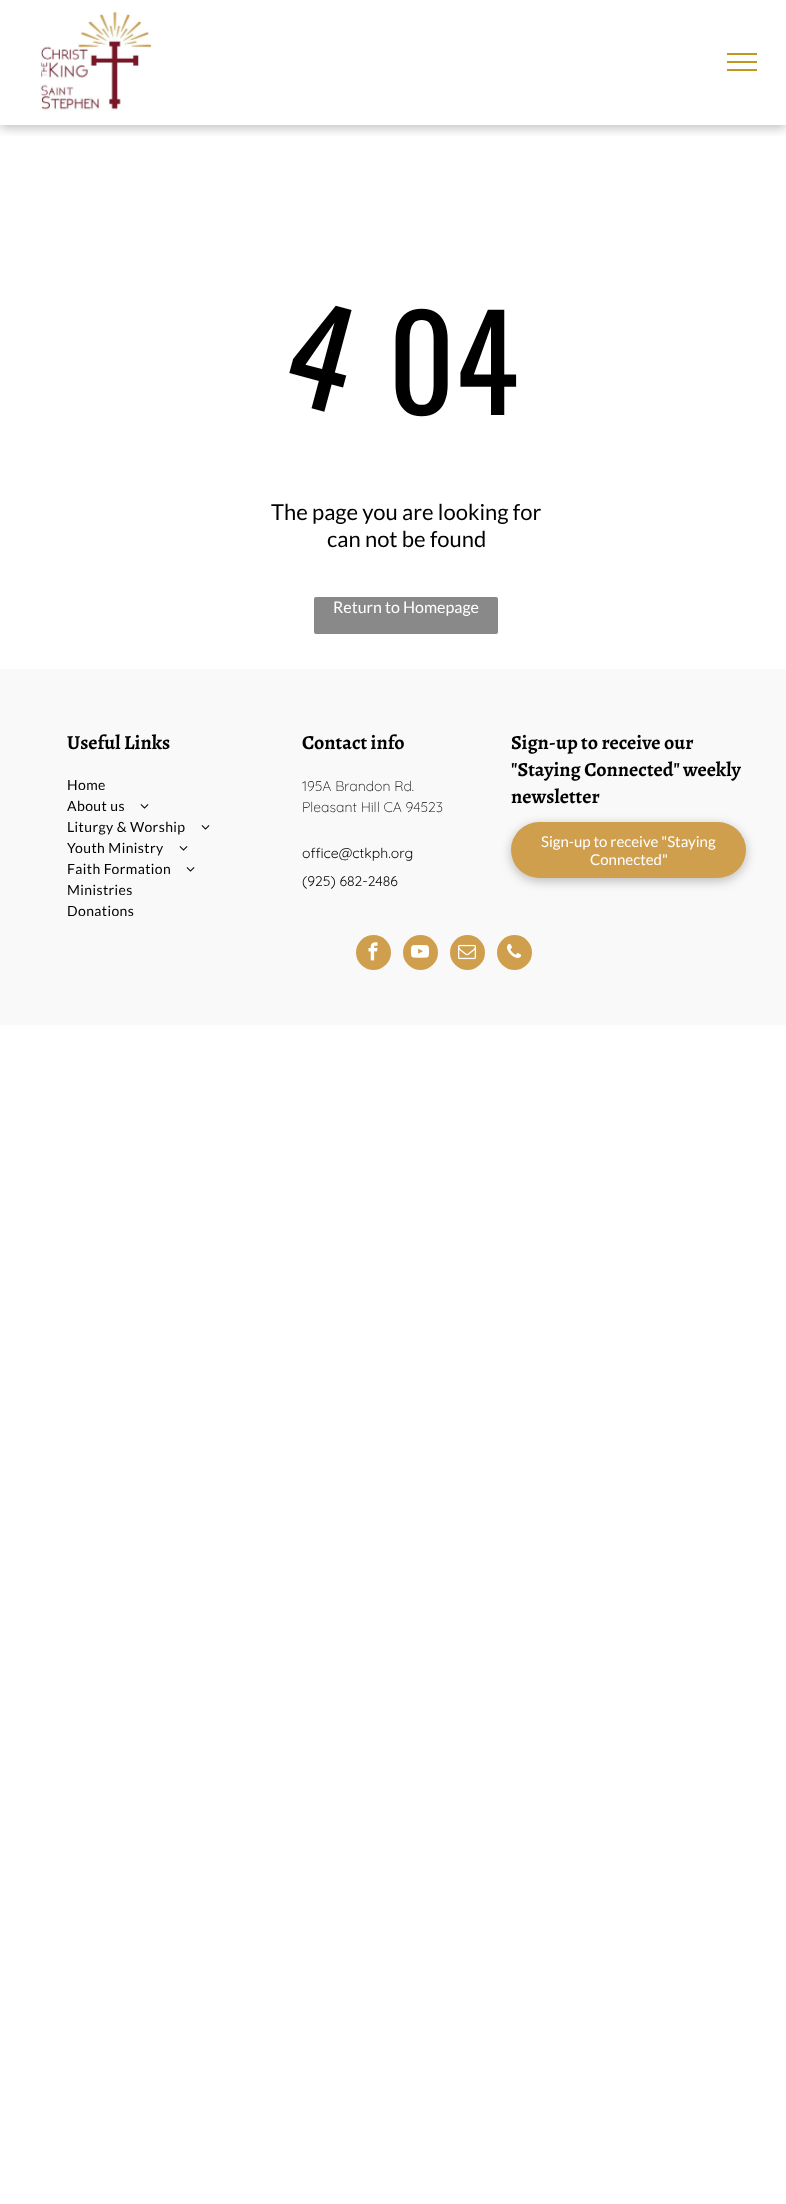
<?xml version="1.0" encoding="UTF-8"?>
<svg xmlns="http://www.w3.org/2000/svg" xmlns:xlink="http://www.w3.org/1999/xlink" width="786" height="2204">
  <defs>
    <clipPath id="clip1"><rect x="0" y="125" width="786" height="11" /></clipPath>
  </defs>
  <rect width="100%" height="100%" fill="#ffffff" />
  <g clip-path="url(#clip1)">
    <rect y="3" width="786" height="125" fill="#000000" fill-opacity="0.25" filter="blur(5.5px)" />
  </g>
  <image x="40" y="12" width="112" height="99" xlink:href="image1.png" />
  <rect x="727" y="53" width="30" height="2" fill="#c2971f" />
  <rect x="727" y="61" width="30" height="2" fill="#c2971f" />
  <rect x="727" y="69" width="30" height="2" fill="#c2971f" />
  <rect x="314" y="597" width="184" height="37" rx="2" fill="#898989" />
  <rect y="669" width="786" height="356" fill="#f9f9f9" />
  <image x="140" y="804" width="9" height="5" xlink:href="image2.png" />
  <image x="201" y="825" width="9" height="5" xlink:href="image2.png" />
  <image x="179" y="846" width="9" height="5" xlink:href="image2.png" />
  <image x="186" y="867" width="9" height="5" xlink:href="image2.png" />
  <rect x="511" y="825" width="235" height="56" rx="28" fill="#000000" fill-opacity="0.25" filter="blur(5.5px)" />
  <rect x="511" y="822" width="235" height="56" rx="28" fill="#cf9f4d" />
  <circle cx="373.5" cy="952.5" r="17.5" fill="#cf9f4d" />
  <image x="368" y="942" width="10" height="19" xlink:href="image3.png" />
  <circle cx="420.5" cy="952.5" r="17.5" fill="#cf9f4d" />
  <image x="411" y="945" width="18" height="13" xlink:href="image4.png" />
  <circle cx="467.5" cy="952.5" r="17.5" fill="#cf9f4d" />
  <image x="458" y="944" width="18" height="16" xlink:href="image5.png" />
  <circle cx="514.5" cy="952.5" r="17.5" fill="#cf9f4d" />
  <image x="507" y="943" width="15" height="15" xlink:href="image6.png" />
  <text x="277" y="399" transform="rotate(15 277 399)" style="font-family: Oswald; font-size: 130px; fill: #000000">4</text>
  <text x="388" y="415" style="font-family: Oswald; font-size: 130px; fill: #000000">04</text>
  <text x="271" y="520" style="font-family: Lato; font-size: 22px; fill: #000000">The page you are looking for</text>
  <text x="327" y="547" style="font-family: Lato; font-size: 22px; fill: #000000">can not be found</text>
  <text x="333" y="613" style="font-family: Lato; font-size: 16px; fill: #ffffff">Return to Homepage</text>
  <text x="67" y="749" style="font-family: Alegreya; font-size: 20px; font-weight: bold; fill: #000000">Useful Links</text>
  <text x="67" y="790" style="font-family: Lato; font-size: 14px; letter-spacing: 0.4px; fill: #000000">Home</text>
  <text x="67" y="811" style="font-family: Lato; font-size: 14px; letter-spacing: 0.4px; fill: #000000">About us</text>
  <text x="67" y="832" style="font-family: Lato; font-size: 14px; letter-spacing: 0.4px; fill: #000000">Liturgy &amp; Worship</text>
  <text x="67" y="853" style="font-family: Lato; font-size: 14px; letter-spacing: 0.4px; fill: #000000">Youth Ministry</text>
  <text x="67" y="874" style="font-family: Lato; font-size: 14px; letter-spacing: 0.4px; fill: #000000">Faith Formation</text>
  <text x="67" y="895" style="font-family: Lato; font-size: 14px; letter-spacing: 0.4px; fill: #000000">Ministries</text>
  <text x="67" y="916" style="font-family: Lato; font-size: 14px; letter-spacing: 0.4px; fill: #000000">Donations</text>
  <text x="302" y="749" style="font-family: Alegreya; font-size: 20px; font-weight: bold; fill: #000000">Contact info</text>
  <text x="302" y="791" style="font-family: Quicksand; font-size: 14px; font-weight: 300; fill: #000000">195A Brandon Rd.</text>
  <text x="302" y="812" style="font-family: Quicksand; font-size: 14px; font-weight: 300; fill: #000000">Pleasant Hill CA 94523</text>
  <text x="302" y="858" style="font-family: Quicksand; font-size: 14px; fill: #000000">office@ctkph.org</text>
  <text x="302" y="886" style="font-family: Quicksand; font-size: 14px; fill: #000000">(925) 682-2486</text>
  <text x="511" y="749" style="font-family: Alegreya; font-size: 20px; font-weight: bold; fill: #000000">Sign-up to receive our</text>
  <text x="511" y="776" style="font-family: Alegreya; font-size: 20px; font-weight: bold; fill: #000000">"Staying Connected" weekly</text>
  <text x="511" y="803" style="font-family: Alegreya; font-size: 20px; font-weight: bold; fill: #000000">newsletter</text>
  <text x="541" y="847" style="font-family: Lato; font-size: 15px; fill: #ffffff">Sign-up to receive "Staying</text>
  <text x="590" y="865" style="font-family: Lato; font-size: 15px; fill: #ffffff">Connected"</text>
</svg>
